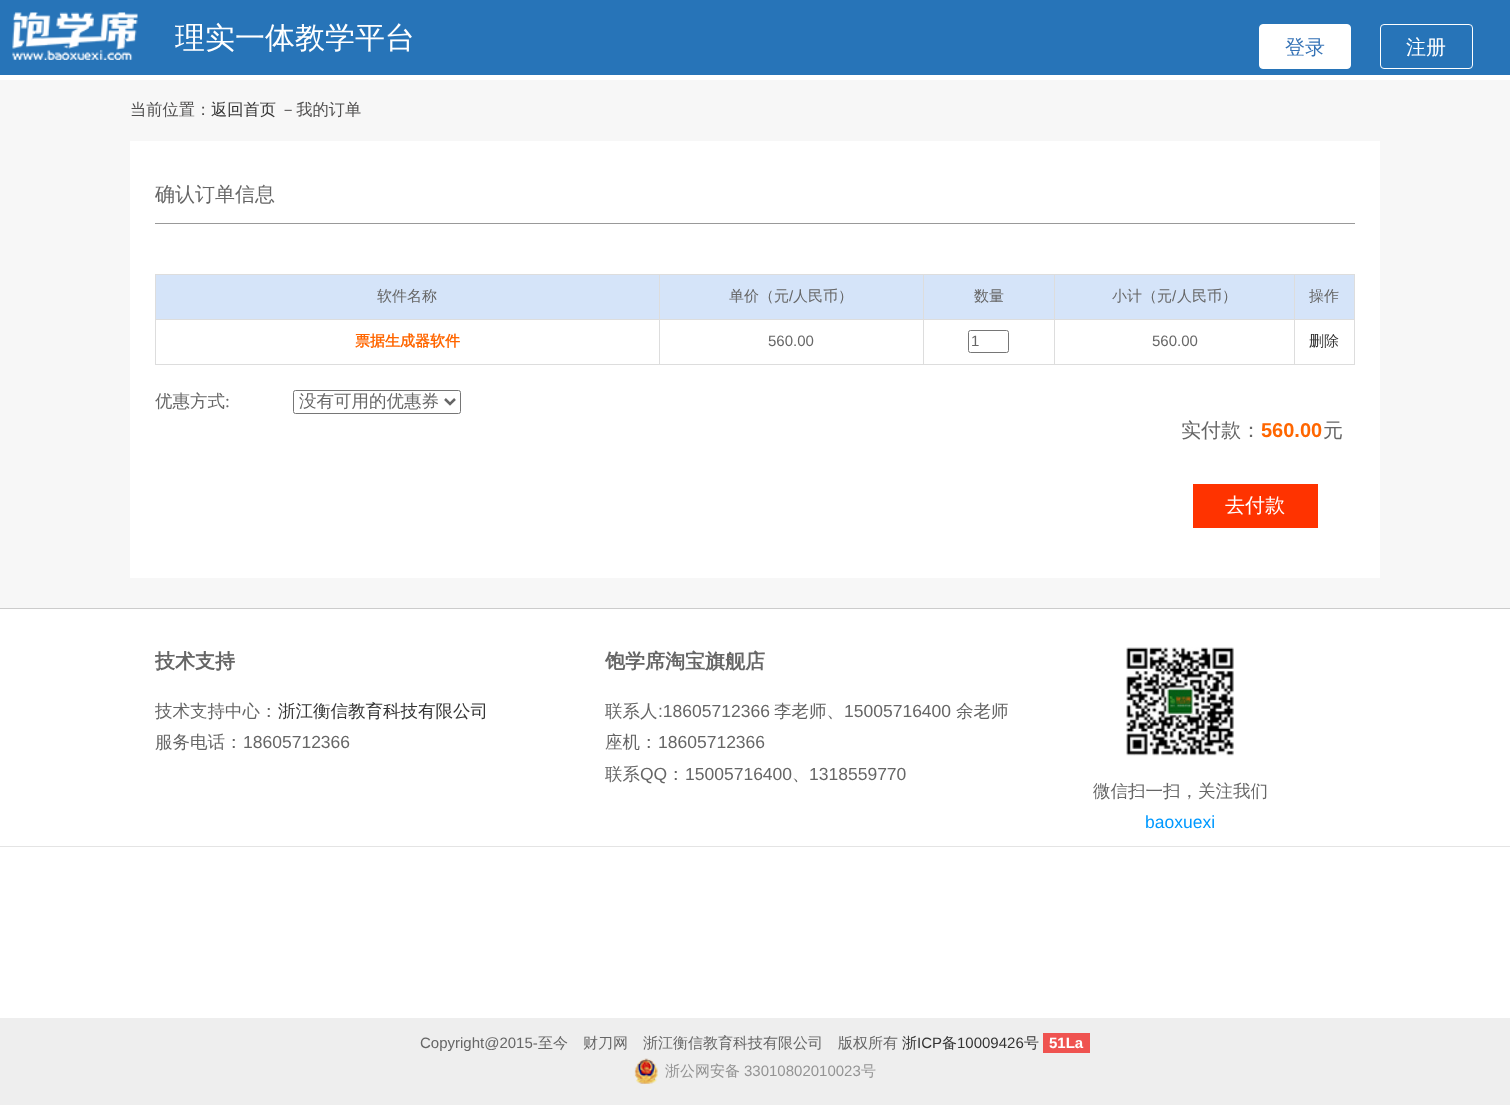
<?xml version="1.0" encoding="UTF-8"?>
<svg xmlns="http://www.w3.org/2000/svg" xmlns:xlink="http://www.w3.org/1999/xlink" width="1510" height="1105">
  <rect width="100%" height="100%" fill="#ffffff" />
  <rect width="1510" height="75" fill="#2774b8" />
  <image x="12" y="12" width="126" height="48" xlink:href="image1.png" />
  <rect x="1259.5" y="24.5" width="91" height="44" rx="3.5" fill="#ffffff" stroke="#ffffff" />
  <rect x="1380.5" y="24.5" width="92" height="44" rx="3.5" fill="none" stroke="#ffffff" />
  <rect y="80" width="1510" height="528" fill="#f7f7f7" />
  <rect x="130" y="141" width="1250" height="437" fill="#ffffff" />
  <rect x="155" y="223" width="1200" height="1" fill="#999999" />
  <rect x="156" y="275" width="503" height="44" fill="#d5e4f9" />
  <rect x="1294" y="274" width="61" height="1" fill="#dddddd" />
  <rect x="1294" y="319" width="61" height="1" fill="#dddddd" />
  <rect x="1354" y="319" width="1" height="46" fill="#dddddd" />
  <rect x="1294" y="364" width="61" height="1" fill="#dddddd" />
  <rect x="1294" y="319" width="1" height="46" fill="#dddddd" />
  <rect x="1054" y="319" width="241" height="1" fill="#dddddd" />
  <rect x="1294" y="274" width="1" height="46" fill="#dddddd" />
  <rect x="1054" y="274" width="241" height="1" fill="#dddddd" />
  <rect x="1054" y="364" width="241" height="1" fill="#dddddd" />
  <rect x="1054" y="319" width="1" height="46" fill="#dddddd" />
  <rect x="923" y="319" width="132" height="1" fill="#dddddd" />
  <rect x="1054" y="274" width="1" height="46" fill="#dddddd" />
  <rect x="923" y="274" width="132" height="1" fill="#dddddd" />
  <rect x="923" y="364" width="132" height="1" fill="#dddddd" />
  <rect x="923" y="319" width="1" height="46" fill="#dddddd" />
  <rect x="659" y="319" width="265" height="1" fill="#dddddd" />
  <rect x="923" y="274" width="1" height="46" fill="#dddddd" />
  <rect x="659" y="274" width="265" height="1" fill="#dddddd" />
  <rect x="659" y="364" width="265" height="1" fill="#dddddd" />
  <rect x="659" y="319" width="1" height="46" fill="#dddddd" />
  <rect x="155" y="319" width="505" height="1" fill="#dddddd" />
  <rect x="659" y="274" width="1" height="46" fill="#dddddd" />
  <rect x="155" y="274" width="505" height="1" fill="#dddddd" />
  <rect x="155" y="364" width="505" height="1" fill="#dddddd" />
  <rect x="155" y="319" width="1" height="46" fill="#dddddd" />
  <rect x="155" y="274" width="1" height="46" fill="#dddddd" />
  <rect x="660" y="275" width="263" height="44" fill="#d5e4f9" />
  <rect x="924" y="275" width="130" height="44" fill="#d5e4f9" />
  <rect x="1055" y="275" width="239" height="44" fill="#d5e4f9" />
  <rect x="1295" y="275" width="59" height="44" fill="#d5e4f9" />
  <rect x="1354" y="274" width="1" height="46" fill="#dddddd" />
  <rect x="968.5" y="330.5" width="40" height="22" rx="2" fill="none" stroke="#767676" />
  <rect x="293.5" y="390.5" width="167" height="23" rx="2" fill="none" stroke="#767676" />
  <path d="M 445 399 l 5 5 l 5 -5" fill="none" stroke="#666666" stroke-width="2.5" />
  <rect x="1193" y="484" width="125" height="44" fill="#ff3300" />
  <rect y="608" width="1510" height="1" fill="#cccccc" />
  <image x="1126" y="647" width="108" height="109" xlink:href="image2.png" />
  <rect y="846" width="1510" height="1" fill="#e4e4e4" />
  <rect y="1018" width="1510" height="87" fill="#eeeeee" />
  <rect x="1043" y="1033" width="47" height="20" fill="#ef5350" />
  <image x="634" y="1058" width="24" height="26" xlink:href="image3.png" />
  <text x="175" y="48" style="font-family: WenQuanYi Zen Hei; font-size: 30px; font-weight: 500; fill: #ffffff">理实一体教学平台</text>
  <text x="1285" y="54" style="font-family: WenQuanYi Zen Hei; font-size: 20px; font-weight: 500; fill: #3673b6">登录</text>
  <text x="1406" y="54" style="font-family: WenQuanYi Zen Hei; font-size: 20px; font-weight: 500; fill: #ffffff">注册</text>
  <text x="130" y="115" style="font-family: WenQuanYi Zen Hei; font-size: 16.25px; font-weight: 500; fill: #4f4e4e">当前位置：</text>
  <text x="211" y="115" style="font-family: WenQuanYi Zen Hei; font-size: 16.25px; font-weight: 500; fill: #333333">返回首页</text>
  <text x="280" y="115" style="font-family: WenQuanYi Zen Hei; font-size: 16.25px; font-weight: 500; fill: #4f4e4e">－我的订单</text>
  <text x="155" y="201" style="font-family: WenQuanYi Zen Hei; font-size: 20px; font-weight: 500; fill: #666666">确认订单信息</text>
  <text x="377" y="301" style="font-family: WenQuanYi Zen Hei; font-size: 15px; font-weight: 500; fill: #666666">软件名称</text>
  <text x="729" y="301" style="font-family: WenQuanYi Zen Hei; font-size: 15px; font-weight: 500; fill: #666666">单价（元</text>
  <text x="789" y="301" style="font-family: Liberation Sans; font-size: 15px; fill: #666666">/</text>
  <text x="793" y="301" style="font-family: WenQuanYi Zen Hei; font-size: 15px; font-weight: 500; fill: #666666">人民币）</text>
  <text x="974" y="301" style="font-family: WenQuanYi Zen Hei; font-size: 15px; font-weight: 500; fill: #666666">数量</text>
  <text x="1112" y="301" style="font-family: WenQuanYi Zen Hei; font-size: 15px; font-weight: 500; fill: #666666">小计（元</text>
  <text x="1172" y="301" style="font-family: Liberation Sans; font-size: 15px; fill: #666666">/</text>
  <text x="1177" y="301" style="font-family: WenQuanYi Zen Hei; font-size: 15px; font-weight: 500; fill: #666666">人民币）</text>
  <text x="1309" y="301" style="font-family: WenQuanYi Zen Hei; font-size: 15px; font-weight: 500; fill: #666666">操作</text>
  <text x="355" y="346" style="font-family: WenQuanYi Zen Hei; font-size: 15px; font-weight: bold; fill: #ff6600">票据生成器软件</text>
  <text x="768" y="346" style="font-family: Liberation Sans; font-size: 15px; fill: #666666">560.00</text>
  <text x="971" y="346" style="font-family: Liberation Sans; font-size: 15px; fill: #666666">1</text>
  <text x="1152" y="346" style="font-family: Liberation Sans; font-size: 15px; fill: #666666">560.00</text>
  <text x="1309" y="346" style="font-family: WenQuanYi Zen Hei; font-size: 15px; font-weight: 500; fill: #333333">删除</text>
  <text x="155" y="407" style="font-family: WenQuanYi Zen Hei; font-size: 17.5px; font-weight: 500; fill: #666666">优惠方式</text>
  <text x="225" y="407" style="font-family: Liberation Serif; font-size: 17.5px; fill: #666666">:</text>
  <text x="299" y="407" style="font-family: WenQuanYi Zen Hei; font-size: 17.5px; font-weight: 500; fill: #666666">没有可用的优惠券</text>
  <text x="1181" y="437" style="font-family: WenQuanYi Zen Hei; font-size: 20px; font-weight: 500; fill: #666666">实付款：</text>
  <text x="1261" y="437" style="font-family: Liberation Sans; font-size: 20px; font-weight: bold; fill: #ff6600">560.00</text>
  <text x="1323" y="437" style="font-family: WenQuanYi Zen Hei; font-size: 20px; font-weight: 500; fill: #666666">元</text>
  <text x="1225" y="512" style="font-family: WenQuanYi Zen Hei; font-size: 20px; font-weight: 500; fill: #ffffff">去付款</text>
  <text x="155" y="668" style="font-family: WenQuanYi Zen Hei; font-size: 20px; font-weight: bold; fill: #666666">技术支持</text>
  <text x="155" y="717" style="font-family: WenQuanYi Zen Hei; font-size: 17.5px; font-weight: 500; fill: #666666">技术支持中心：</text>
  <text x="278" y="717" style="font-family: WenQuanYi Zen Hei; font-size: 17.5px; font-weight: 500; fill: #333333">浙江衡信教育科技有限公司</text>
  <text x="155" y="748" style="font-family: WenQuanYi Zen Hei; font-size: 17.5px; font-weight: 500; fill: #666666">服务电话：</text>
  <text x="243" y="748" style="font-family: Liberation Sans; font-size: 17.5px; fill: #666666">18605712366</text>
  <text x="605" y="668" style="font-family: WenQuanYi Zen Hei; font-size: 20px; font-weight: bold; fill: #666666">饱学席淘宝旗舰店</text>
  <text x="605" y="717" style="font-family: WenQuanYi Zen Hei; font-size: 17.5px; font-weight: 500; fill: #666666">联系人</text>
  <text x="658" y="717" style="font-family: Liberation Sans; font-size: 17.5px; fill: #666666">:18605712366</text>
  <text x="774" y="717" style="font-family: WenQuanYi Zen Hei; font-size: 17.5px; font-weight: 500; fill: #666666">李老师、</text>
  <text x="844" y="717" style="font-family: Liberation Sans; font-size: 17.5px; fill: #666666">15005716400</text>
  <text x="956" y="717" style="font-family: WenQuanYi Zen Hei; font-size: 17.5px; font-weight: 500; fill: #666666">余老师</text>
  <text x="605" y="748" style="font-family: WenQuanYi Zen Hei; font-size: 17.5px; font-weight: 500; fill: #666666">座机：</text>
  <text x="658" y="748" style="font-family: Liberation Sans; font-size: 17.5px; fill: #666666">18605712366</text>
  <text x="605" y="780" style="font-family: WenQuanYi Zen Hei; font-size: 17.5px; font-weight: 500; fill: #666666">联系</text>
  <text x="640" y="780" style="font-family: Liberation Sans; font-size: 17.5px; fill: #666666">QQ</text>
  <text x="667" y="780" style="font-family: WenQuanYi Zen Hei; font-size: 17.5px; font-weight: 500; fill: #666666">：</text>
  <text x="685" y="780" style="font-family: Liberation Sans; font-size: 17.5px; fill: #666666">15005716400</text>
  <text x="809" y="780" style="font-family: Liberation Sans; font-size: 17.5px; fill: #666666">1318559770</text>
  <text x="792" y="780" style="font-family: WenQuanYi Zen Hei; font-size: 17.5px; font-weight: 500; fill: #666666">、</text>
  <text x="1093" y="797" style="font-family: WenQuanYi Zen Hei; font-size: 17.5px; font-weight: 500; fill: #666666">微信扫一扫，关注我们</text>
  <text x="1145" y="828" style="font-family: Liberation Sans; font-size: 17.5px; fill: #0099ff">baoxuexi</text>
  <text x="420" y="1048" style="font-family: Liberation Sans; font-size: 15px; fill: #666666">Copyright@2015-</text>
  <text x="538" y="1048" style="font-family: WenQuanYi Zen Hei; font-size: 15px; font-weight: 500; fill: #666666">至今　财刀网　浙江衡信教育科技有限公司　版权所有</text>
  <text x="902" y="1048" style="font-family: WenQuanYi Zen Hei; font-size: 15px; font-weight: 500; fill: #333333">浙</text>
  <text x="917" y="1048" style="font-family: Liberation Sans; font-size: 15px; fill: #333333">ICP</text>
  <text x="942" y="1048" style="font-family: WenQuanYi Zen Hei; font-size: 15px; font-weight: 500; fill: #333333">备</text>
  <text x="957" y="1048" style="font-family: Liberation Sans; font-size: 15px; fill: #333333">10009426</text>
  <text x="1024" y="1048" style="font-family: WenQuanYi Zen Hei; font-size: 15px; font-weight: 500; fill: #333333">号</text>
  <text x="1049" y="1048" style="font-family: Liberation Sans; font-size: 15px; font-weight: bold; fill: #ffffff">51La</text>
  <text x="665" y="1076" style="font-family: WenQuanYi Zen Hei; font-size: 15px; font-weight: 500; fill: #939393">浙公网安备</text>
  <text x="744" y="1076" style="font-family: Liberation Sans; font-size: 15px; fill: #939393">33010802010023</text>
  <text x="861" y="1076" style="font-family: WenQuanYi Zen Hei; font-size: 15px; font-weight: 500; fill: #939393">号</text>
</svg>
